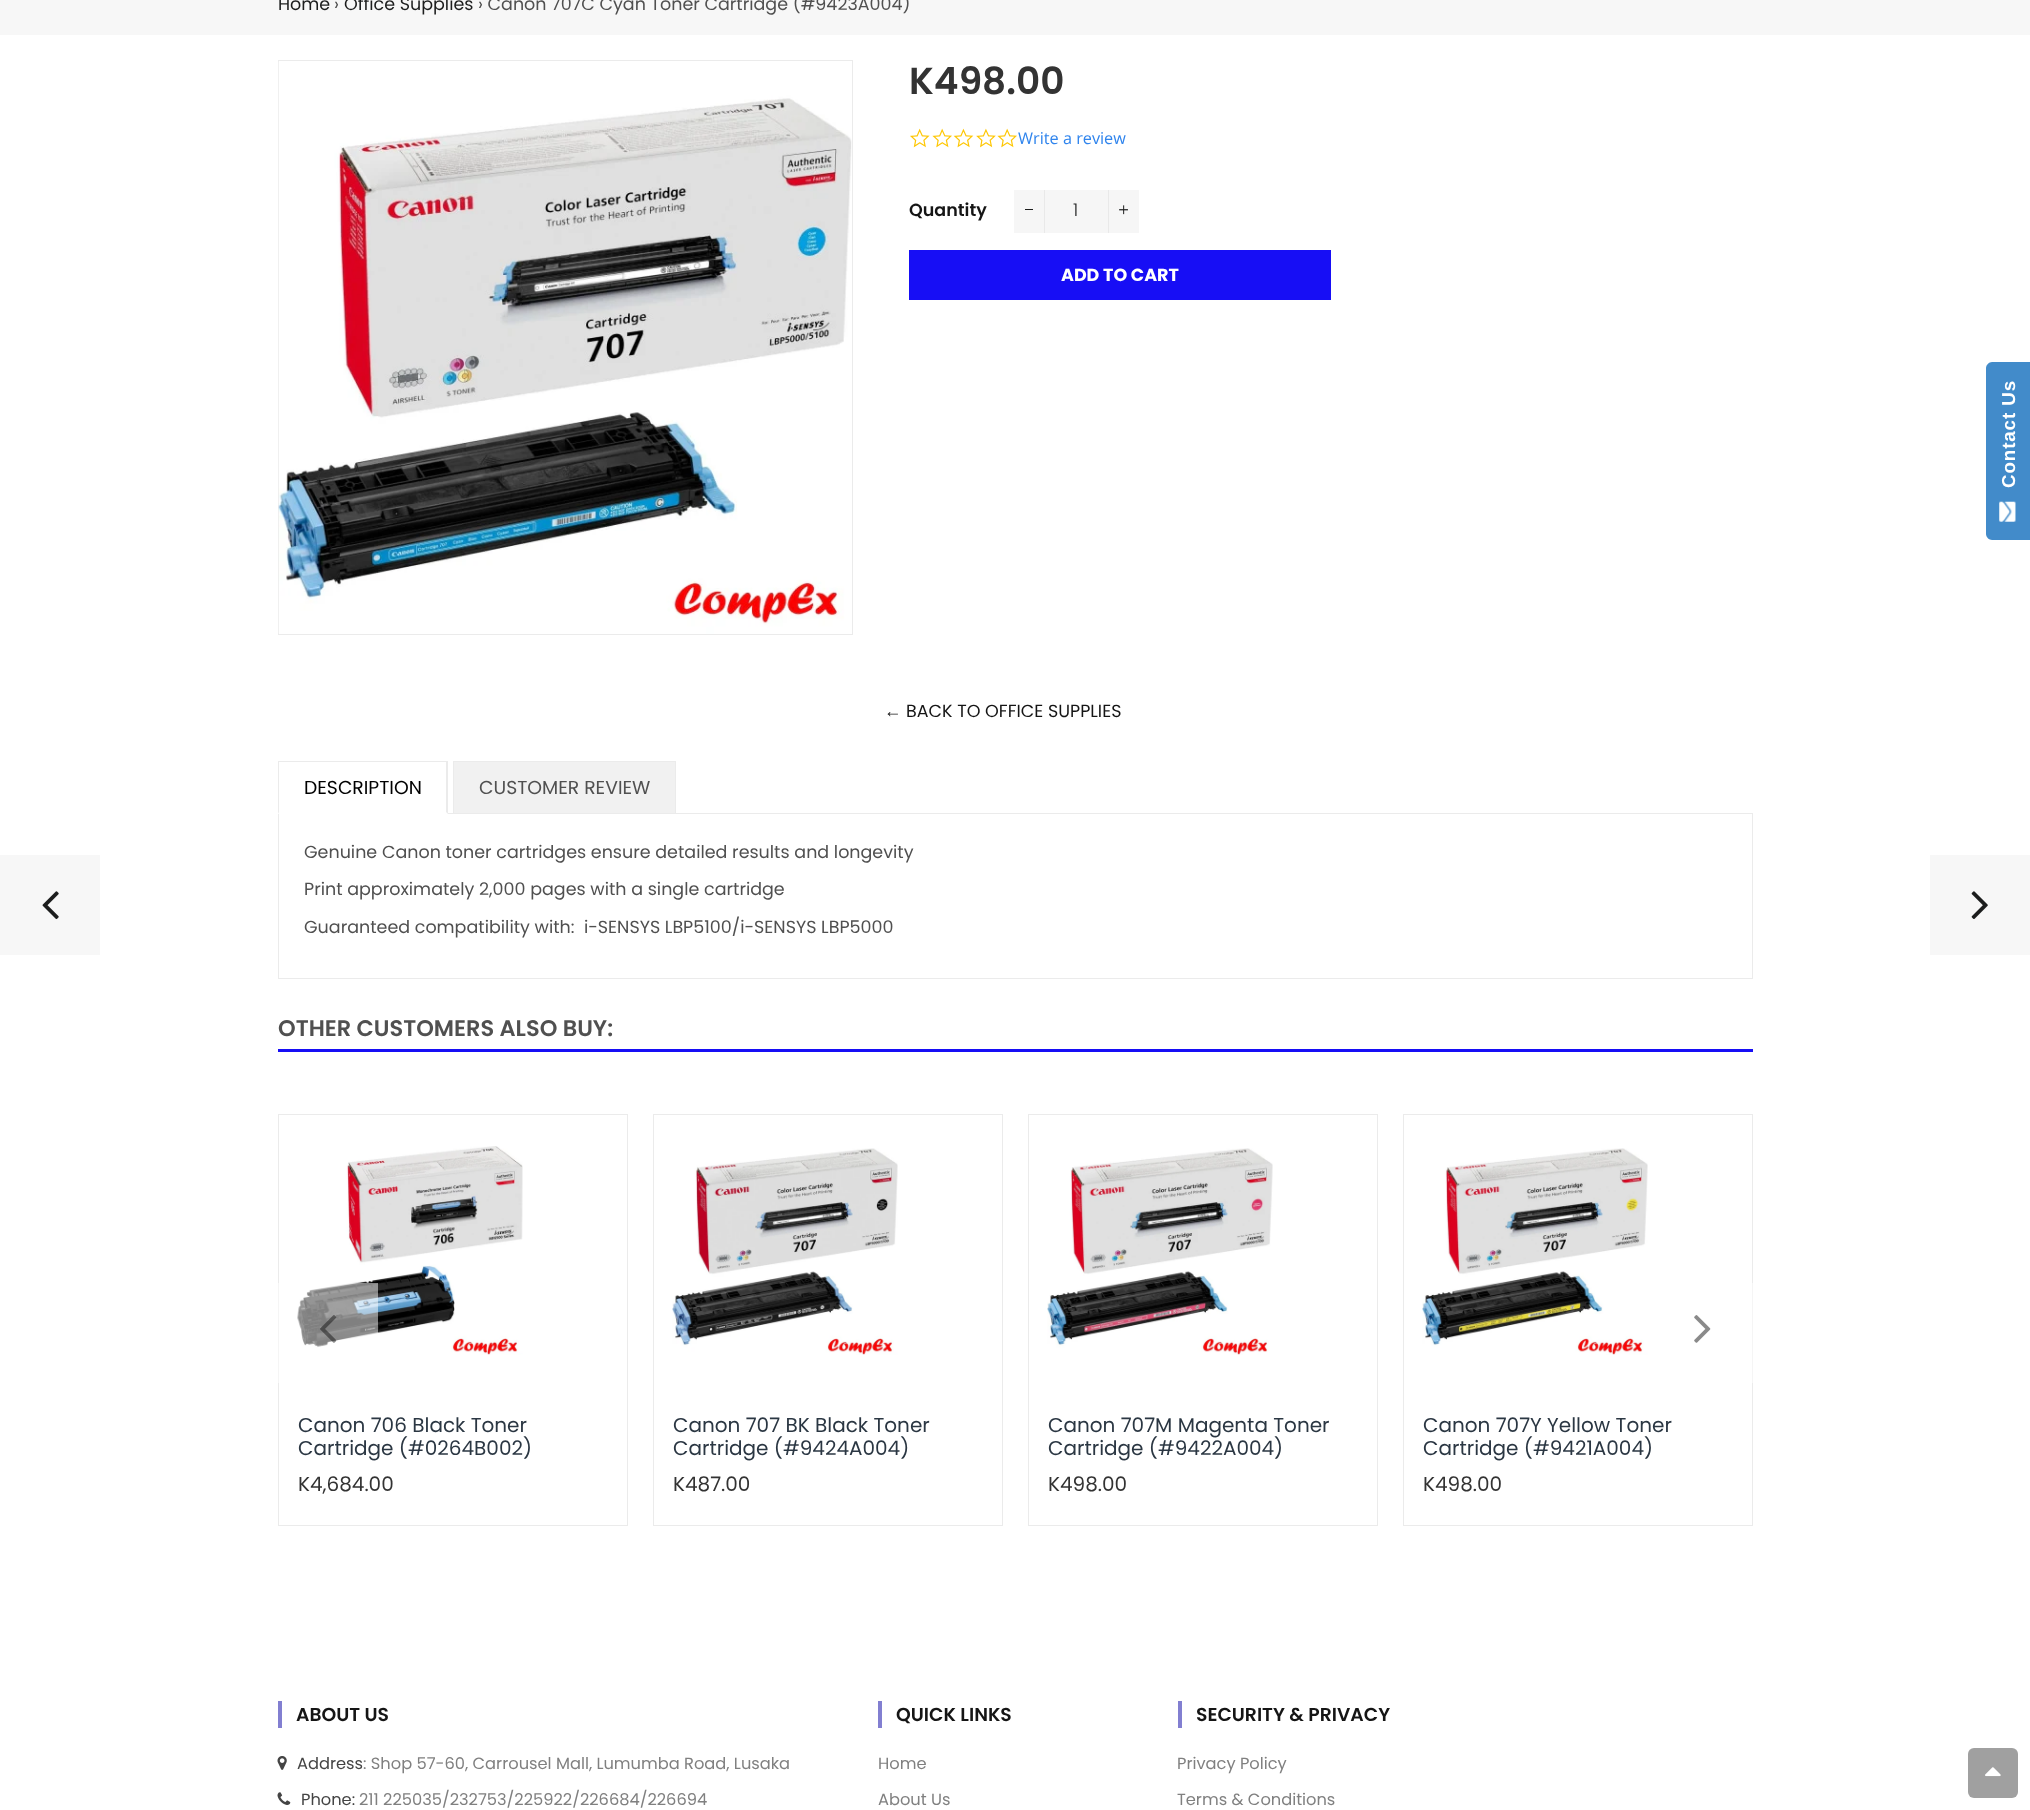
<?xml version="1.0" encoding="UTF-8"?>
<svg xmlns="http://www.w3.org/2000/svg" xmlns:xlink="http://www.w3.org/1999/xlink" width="2030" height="1810">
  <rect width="100%" height="100%" fill="#ffffff" />
  <rect width="2030" height="35" fill="#f7f7f7" />
  <rect x="278.5" y="60.5" width="574" height="574" fill="none" stroke="#ebebeb" />
  <image x="278" y="61" width="574" height="573" xlink:href="image1.png" />
  <image x="910" y="128" width="20" height="20" xlink:href="image2.png" />
  <image x="932" y="128" width="20" height="20" xlink:href="image3.png" />
  <image x="953" y="128" width="21" height="20" xlink:href="image4.png" />
  <image x="976" y="128" width="20" height="20" xlink:href="image5.png" />
  <image x="997" y="128" width="20" height="20" xlink:href="image3.png" />
  <rect x="1014" y="190" width="125" height="43" fill="#f6f6f6" />
  <rect x="1044" y="190" width="1" height="43" fill="#e9e9e9" />
  <rect x="1025" y="209" width="8" height="1" fill="#1c1d1d" />
  <rect x="1108" y="190" width="1" height="43" fill="#e9e9e9" />
  <image x="1119" y="205" width="9" height="10" xlink:href="image6.png" />
  <rect x="909" y="250" width="422" height="50" fill="#170ef5" />
  <rect x="278.5" y="813.5" width="1474" height="165" fill="none" stroke="#ebebeb" />
  <rect x="278" y="813" width="170" height="1" fill="#ffffff" />
  <rect x="278" y="761" width="170" height="1" fill="#ebebeb" />
  <path d="M 448 761 v 53 l -2 -2 v -50 z" fill="#ebebeb" />
  <path d="M 278 814 v -53 l 1 1 v 50 z" fill="#ebebeb" />
  <rect x="453.5" y="761.5" width="222" height="52" fill="#f1f1f1" stroke="#ebebeb" />
  <rect x="278" y="1049" width="1475" height="3" fill="#170ef5" />
  <rect x="278.5" y="1114.5" width="349" height="411" fill="none" stroke="#ebebeb" />
  <image x="297" y="1146" width="226" height="209" xlink:href="image9.png" />
  <rect x="278" y="1283" width="100" height="100" fill="#ffffff" fill-opacity="0.5" />
  <image x="320" y="1315" width="17" height="28" xlink:href="image7.png" />
  <rect x="1403.5" y="1114.5" width="349" height="411" fill="none" stroke="#ebebeb" />
  <rect x="1752" y="1283" width="1" height="100" fill="#ffffff" fill-opacity="0.5" />
  <image x="1694" y="1315" width="17" height="28" xlink:href="image8.png" />
  <rect x="653.5" y="1114.5" width="349" height="411" fill="none" stroke="#ebebeb" />
  <image x="672" y="1148" width="226" height="207" xlink:href="image10.png" />
  <rect x="1028.5" y="1114.5" width="349" height="411" fill="none" stroke="#ebebeb" />
  <image x="1047" y="1148" width="226" height="207" xlink:href="image11.png" />
  <image x="1422" y="1148" width="226" height="207" xlink:href="image12.png" />
  <rect y="855" width="100" height="100" fill="#f7f7f7" />
  <image x="42" y="891" width="17" height="29" xlink:href="image13.png" />
  <rect x="1930" y="855" width="100" height="100" fill="#f7f7f7" />
  <image x="1971" y="891" width="17" height="28" xlink:href="image14.png" />
  <rect x="278" y="1701" width="4" height="27" fill="#827fd1" />
  <image x="277" y="1756" width="10" height="14" xlink:href="image15.png" />
  <image x="277" y="1792" width="14" height="13" xlink:href="image16.png" />
  <rect x="878" y="1701" width="4" height="27" fill="#827fd1" />
  <rect x="1178" y="1701" width="4" height="27" fill="#827fd1" />
  <path d="M 1986 534 v -166 c 0 -3 3 -6 6 -6 h 38 v 178 h -38 c -3 0 -6 -3 -6 -6 z" fill="#428bca" />
  <image x="1999" y="501" width="17" height="21" xlink:href="image17.png" />
  <rect x="1968" y="1748" width="50" height="50" rx="6" fill="#a0a0a0" />
  <image x="1985" y="1767" width="16" height="10" xlink:href="image18.png" />
  <text x="278" y="10" style="font-family: Poppins; font-size: 17.5px; fill: #1c1d1d">Home</text>
  <text x="334" y="10" style="font-family: Poppins; font-size: 17.5px; fill: #505050">›</text>
  <text x="344" y="10" style="font-family: Poppins; font-size: 17.5px; fill: #1c1d1d">Office Supplies</text>
  <text x="478" y="10" style="font-family: Poppins; font-size: 17.5px; fill: #505050">› Canon 707C Cyan Toner Cartridge (#9423A004)</text>
  <text x="909" y="94" style="font-family: Poppins; font-size: 37.5px; font-weight: 600; fill: #333333">K498.00</text>
  <text x="1018" y="144" style="font-family: Open Sans; font-size: 16.25px; fill: #2f84ed">Write a review</text>
  <text x="909" y="216" style="font-family: Poppins; font-size: 17.5px; font-weight: 600; fill: #151515">Quantity</text>
  <text x="1073" y="216" style="font-family: Poppins; font-size: 17.5px; font-weight: 300; fill: #1c1d1d">1</text>
  <text x="1061" y="281" style="font-family: Poppins; font-size: 17.5px; font-weight: bold; fill: #ffffff">ADD TO CART</text>
  <text x="884" y="717" style="font-family: Liberation Serif; font-size: 17.5px; fill: #151515">←</text>
  <text x="906" y="717" style="font-family: Poppins; font-size: 17.5px; fill: #151515">BACK TO OFFICE SUPPLIES</text>
  <text x="304" y="794" style="font-family: Poppins; font-size: 18.75px; fill: #000000">DESCRIPTION</text>
  <text x="479" y="794" style="font-family: Poppins; font-size: 18.75px; fill: #505050">CUSTOMER REVIEW</text>
  <text x="304" y="858" style="font-family: Poppins; font-size: 17.5px; fill: #505050">Genuine Canon toner cartridges ensure detailed results and longevity</text>
  <text x="304" y="895" style="font-family: Poppins; font-size: 17.5px; fill: #505050">Print approximately 2,000 pages with a single cartridge</text>
  <text x="304" y="933" style="font-family: Poppins; font-size: 17.5px; fill: #505050" xml:space="preserve">Guaranteed compatibility with:  i-SENSYS LBP5100/i-SENSYS LBP5000</text>
  <text x="278" y="1036" style="font-family: Poppins; font-size: 22.5px; font-weight: 600; fill: #505050">OTHER CUSTOMERS ALSO BUY:</text>
  <text x="298" y="1432" style="font-family: Poppins; font-size: 20px; fill: #2b3743">Canon 706 Black Toner</text>
  <text x="298" y="1455" style="font-family: Poppins; font-size: 20px; fill: #2b3743">Cartridge (#0264B002)</text>
  <text x="298" y="1491" style="font-family: Poppins; font-size: 20px; fill: #333333">K4,684.00</text>
  <text x="673" y="1432" style="font-family: Poppins; font-size: 20px; fill: #2b3743">Canon 707 BK Black Toner</text>
  <text x="673" y="1455" style="font-family: Poppins; font-size: 20px; fill: #2b3743">Cartridge (#9424A004)</text>
  <text x="673" y="1491" style="font-family: Poppins; font-size: 20px; fill: #333333">K487.00</text>
  <text x="1048" y="1432" style="font-family: Poppins; font-size: 20px; fill: #2b3743">Canon 707M Magenta Toner</text>
  <text x="1048" y="1455" style="font-family: Poppins; font-size: 20px; fill: #2b3743">Cartridge (#9422A004)</text>
  <text x="1048" y="1491" style="font-family: Poppins; font-size: 20px; fill: #333333">K498.00</text>
  <text x="1423" y="1432" style="font-family: Poppins; font-size: 20px; fill: #2b3743">Canon 707Y Yellow Toner</text>
  <text x="1423" y="1455" style="font-family: Poppins; font-size: 20px; fill: #2b3743">Cartridge (#9421A004)</text>
  <text x="1423" y="1491" style="font-family: Poppins; font-size: 20px; fill: #333333">K498.00</text>
  <text x="296" y="1721" style="font-family: Poppins; font-size: 18.75px; font-weight: 600; fill: #151515">ABOUT US</text>
  <text x="297" y="1769" style="font-family: Poppins; font-size: 16.25px; fill: #444444">Address</text>
  <text x="363" y="1769" style="font-family: Poppins; font-size: 16.25px; fill: #808080">: Shop 57-60, Carrousel Mall, Lumumba Road, Lusaka</text>
  <text x="301" y="1805" style="font-family: Poppins; font-size: 16.25px; fill: #444444">Phone:</text>
  <text x="359" y="1805" style="font-family: Poppins; font-size: 16.25px; fill: #808080">211 225035/232753/225922/226684/226694</text>
  <text x="896" y="1721" style="font-family: Poppins; font-size: 18.75px; font-weight: 600; fill: #151515">QUICK LINKS</text>
  <text x="878" y="1769" style="font-family: Poppins; font-size: 16.25px; fill: #808080">Home</text>
  <text x="878" y="1805" style="font-family: Poppins; font-size: 16.25px; fill: #808080">About Us</text>
  <text x="1196" y="1721" style="font-family: Poppins; font-size: 18.75px; font-weight: 600; fill: #151515">SECURITY &amp; PRIVACY</text>
  <text x="1177" y="1769" style="font-family: Poppins; font-size: 16.25px; fill: #808080">Privacy Policy</text>
  <text x="1177" y="1805" style="font-family: Poppins; font-size: 16.25px; fill: #808080">Terms &amp; Conditions</text>
  <text x="2015" y="488" transform="rotate(-90 2015 488)" style="font-family: Liberation Sans; font-size: 18.75px; font-weight: bold; letter-spacing: 0.9px; fill: #ffffff">Contact Us</text>
</svg>
